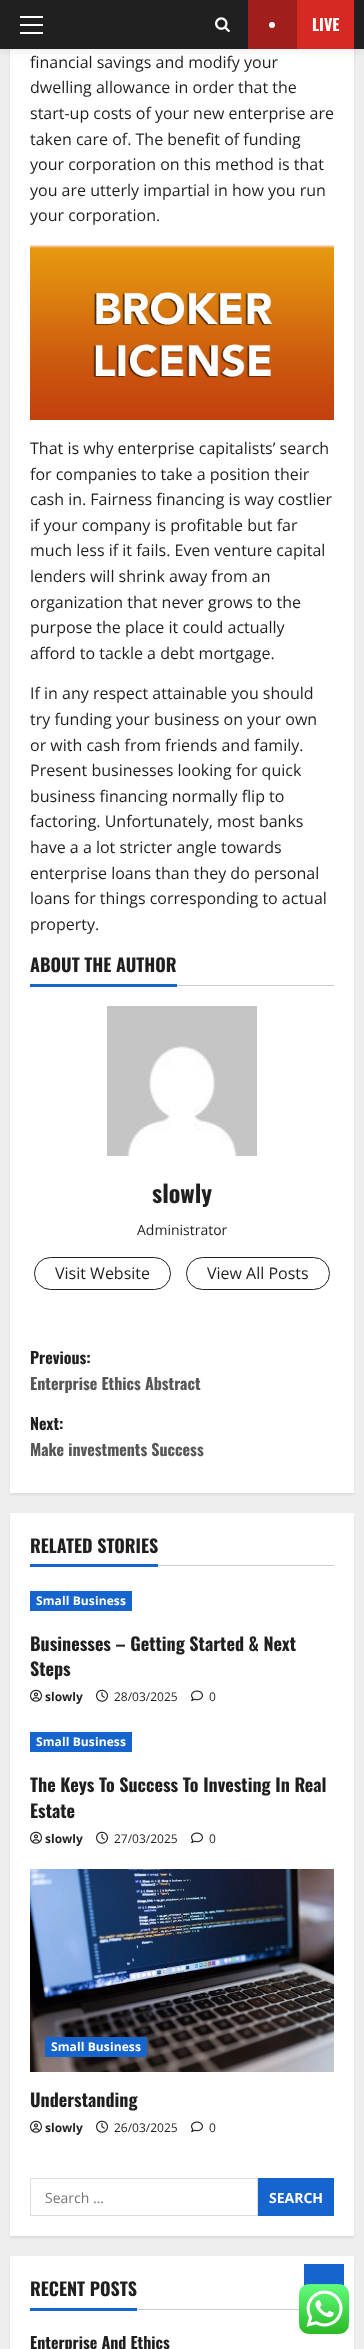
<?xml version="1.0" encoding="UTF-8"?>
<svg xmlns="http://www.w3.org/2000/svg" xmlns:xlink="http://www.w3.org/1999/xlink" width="364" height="2349">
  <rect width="100%" height="100%" fill="#eeeeee" />
  <rect x="10" y="-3" width="344" height="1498" fill="#000000" fill-opacity="0.08" filter="blur(1px)" />
  <rect x="10" y="49" width="344" height="1444" fill="#ffffff" />
  <rect y="2" width="364" height="49" fill="#000000" fill-opacity="0.08" filter="blur(4px)" />
  <rect width="364" height="49" fill="#202020" />
  <rect x="20" y="24" width="23" height="2" fill="#ffffff" />
  <rect x="20" y="16" width="23" height="2" fill="#ffffff" />
  <rect x="20" y="32" width="23" height="2" fill="#ffffff" />
  <image x="215" y="17" width="15" height="16" xlink:href="image1.png" />
  <rect x="297" width="57" height="49" fill="#d72924" />
  <rect x="248" width="49" height="49" fill="#a11f1b" />
  <circle cx="272" cy="25" r="3" fill="#ffffff" />
  <image x="30" y="245" width="304" height="175" xlink:href="image2.png" />
  <rect x="177" y="985" width="157" height="1" fill="#cccccc" />
  <rect x="30" y="984" width="147" height="3" fill="#1665cf" />
  <image x="107" y="1006" width="150" height="150" xlink:href="image3.png" />
  <rect x="34.5" y="1257.5" width="136" height="32" rx="16" fill="none" stroke="#1f1f1f" />
  <rect x="186.5" y="1257.5" width="143" height="32" rx="16" fill="none" stroke="#1f1f1f" />
  <rect x="10" y="1515" width="344" height="645" fill="#000000" fill-opacity="0.08" filter="blur(1px)" />
  <rect x="10" y="1513" width="344" height="645" fill="#ffffff" />
  <rect x="158" y="1565" width="176" height="1" fill="#cccccc" />
  <rect x="30" y="1564" width="128" height="3" fill="#1665cf" />
  <rect x="30" y="1591" width="102" height="20" fill="#1665cf" />
  <image x="30" y="1689" width="12" height="13" xlink:href="image4.png" />
  <image x="96" y="1689" width="12" height="13" xlink:href="image5.png" />
  <image x="191" y="1690" width="12" height="11" xlink:href="image6.png" />
  <rect x="30" y="1732" width="102" height="20" fill="#1665cf" />
  <image x="30" y="1831" width="12" height="13" xlink:href="image4.png" />
  <image x="96" y="1831" width="12" height="13" xlink:href="image5.png" />
  <image x="191" y="1832" width="12" height="11" xlink:href="image6.png" />
  <image x="30" y="1869" width="304" height="203" xlink:href="image7.png" />
  <rect x="45" y="2037" width="102" height="20" fill="#1665cf" />
  <image x="30" y="2120" width="12" height="13" xlink:href="image4.png" />
  <image x="96" y="2120" width="12" height="13" xlink:href="image5.png" />
  <image x="191" y="2121" width="12" height="11" xlink:href="image6.png" />
  <rect x="10" y="2160" width="344" height="78" fill="#000000" fill-opacity="0.08" filter="blur(1px)" />
  <rect x="10" y="2158" width="344" height="78" fill="#ffffff" />
  <rect x="30.5" y="2178.5" width="227" height="37" fill="none" stroke="#dcdcdc" />
  <rect x="258" y="2178" width="76" height="38" fill="#1665cf" />
  <rect x="10" y="2258" width="344" height="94" fill="#000000" fill-opacity="0.08" filter="blur(1px)" />
  <rect x="10" y="2256" width="344" height="93" fill="#ffffff" />
  <rect x="137" y="2309" width="162" height="1" fill="#cccccc" />
  <rect x="30" y="2308" width="107" height="3" fill="#1665cf" />
  <rect x="304" y="2264" width="40" height="22" fill="#1665cf" />
  <path d="M 334 2291 h -20 l 10 -10 z" fill="#1665cf" />
  <image x="299" y="2284" width="50" height="50" xlink:href="image8.png" />
  <text x="312" y="31" style="font-family: Oswald; font-size: 16px; font-weight: bold; fill: #ffffff">LIVE</text>
  <text x="30" y="68" style="font-family: Open Sans; font-size: 16px; fill: #1f1f1f">financial savings and modify your</text>
  <text x="30" y="93" style="font-family: Open Sans; font-size: 16px; fill: #1f1f1f">dwelling allowance in order that the</text>
  <text x="30" y="119" style="font-family: Open Sans; font-size: 16px; fill: #1f1f1f">start-up costs of your new enterprise are</text>
  <text x="30" y="145" style="font-family: Open Sans; font-size: 16px; fill: #1f1f1f">taken care of. The benefit of funding</text>
  <text x="30" y="170" style="font-family: Open Sans; font-size: 16px; fill: #1f1f1f">your corporation on this method is that</text>
  <text x="30" y="196" style="font-family: Open Sans; font-size: 16px; fill: #1f1f1f">you are utterly impartial in how you run</text>
  <text x="30" y="221" style="font-family: Open Sans; font-size: 16px; fill: #1f1f1f">your corporation.</text>
  <text x="30" y="454" style="font-family: Open Sans; font-size: 16px; fill: #1f1f1f">That is why enterprise capitalists’ search</text>
  <text x="30" y="480" style="font-family: Open Sans; font-size: 16px; fill: #1f1f1f">for companies to take a position their</text>
  <text x="30" y="505" style="font-family: Open Sans; font-size: 16px; fill: #1f1f1f">cash in. Fairness financing is way costlier</text>
  <text x="30" y="531" style="font-family: Open Sans; font-size: 16px; fill: #1f1f1f">if your company is profitable but far</text>
  <text x="30" y="556" style="font-family: Open Sans; font-size: 16px; fill: #1f1f1f">much less if it fails. Even venture capital</text>
  <text x="30" y="582" style="font-family: Open Sans; font-size: 16px; fill: #1f1f1f">lenders will shrink away from an</text>
  <text x="30" y="608" style="font-family: Open Sans; font-size: 16px; fill: #1f1f1f">organization that never grows to the</text>
  <text x="30" y="633" style="font-family: Open Sans; font-size: 16px; fill: #1f1f1f">purpose the place it could actually</text>
  <text x="30" y="659" style="font-family: Open Sans; font-size: 16px; fill: #1f1f1f">afford to tackle a debt mortgage.</text>
  <text x="30" y="699" style="font-family: Open Sans; font-size: 16px; fill: #1f1f1f">If in any respect attainable you should</text>
  <text x="30" y="725" style="font-family: Open Sans; font-size: 16px; fill: #1f1f1f">try funding your business on your own</text>
  <text x="30" y="751" style="font-family: Open Sans; font-size: 16px; fill: #1f1f1f">or with cash from friends and family.</text>
  <text x="30" y="776" style="font-family: Open Sans; font-size: 16px; fill: #1f1f1f">Present businesses looking for quick</text>
  <text x="30" y="802" style="font-family: Open Sans; font-size: 16px; fill: #1f1f1f">business financing normally flip to</text>
  <text x="30" y="827" style="font-family: Open Sans; font-size: 16px; fill: #1f1f1f">factoring. Unfortunately, most banks</text>
  <text x="30" y="853" style="font-family: Open Sans; font-size: 16px; fill: #1f1f1f">have a a lot stricter angle towards</text>
  <text x="30" y="879" style="font-family: Open Sans; font-size: 16px; fill: #1f1f1f">enterprise loans than they do personal</text>
  <text x="30" y="904" style="font-family: Open Sans; font-size: 16px; fill: #1f1f1f">loans for things corresponding to actual</text>
  <text x="30" y="930" style="font-family: Open Sans; font-size: 16px; fill: #1f1f1f">property.</text>
  <text x="30" y="972" style="font-family: Oswald; font-size: 18px; font-weight: bold; fill: #1f1f1f">ABOUT THE AUTHOR</text>
  <text x="152" y="1203" style="font-family: Oswald; font-size: 24px; font-weight: bold; fill: #1f1f1f">slowly</text>
  <text x="137" y="1235" style="font-family: Open Sans; font-size: 14px; fill: #1f1f1f">Administrator</text>
  <text x="55" y="1279" style="font-family: Open Sans; font-size: 16px; fill: #1f1f1f">Visit Website</text>
  <text x="207" y="1279" style="font-family: Open Sans; font-size: 16px; fill: #1f1f1f">View All Posts</text>
  <text x="30" y="1364" style="font-family: Oswald; font-size: 16px; font-weight: bold; fill: #1f1f1f">Previous:</text>
  <text x="30" y="1390" style="font-family: Oswald; font-size: 16px; font-weight: bold; fill: #575757">Enterprise Ethics Abstract</text>
  <text x="30" y="1430" style="font-family: Oswald; font-size: 16px; font-weight: bold; fill: #1f1f1f">Next:</text>
  <text x="30" y="1456" style="font-family: Oswald; font-size: 16px; font-weight: bold; fill: #575757">Make investments Success</text>
  <text x="30" y="1553" style="font-family: Oswald; font-size: 18px; font-weight: bold; fill: #1f1f1f">RELATED STORIES</text>
  <text x="36" y="1605" style="font-family: Open Sans; font-size: 12px; font-weight: bold; letter-spacing: 0.1px; fill: #ffffff">Small Business</text>
  <text x="30" y="1651" style="font-family: Oswald; font-size: 18px; font-weight: bold; fill: #1f1f1f">Businesses – Getting Started &amp; Next</text>
  <text x="30" y="1676" style="font-family: Oswald; font-size: 18px; font-weight: bold; fill: #1f1f1f">Steps</text>
  <text x="45" y="1701" style="font-family: Open Sans; font-size: 12px; font-weight: bold; fill: #1f1f1f">slowly</text>
  <text x="114" y="1701" style="font-family: Open Sans; font-size: 12px; fill: #1f1f1f">28/03/2025</text>
  <text x="209" y="1701" style="font-family: Open Sans; font-size: 12px; fill: #1f1f1f">0</text>
  <text x="36" y="1746" style="font-family: Open Sans; font-size: 12px; font-weight: bold; letter-spacing: 0.1px; fill: #ffffff">Small Business</text>
  <text x="30" y="1792" style="font-family: Oswald; font-size: 18px; font-weight: bold; fill: #1f1f1f">The Keys To Success To Investing In Real</text>
  <text x="30" y="1818" style="font-family: Oswald; font-size: 18px; font-weight: bold; fill: #1f1f1f">Estate</text>
  <text x="45" y="1843" style="font-family: Open Sans; font-size: 12px; font-weight: bold; fill: #1f1f1f">slowly</text>
  <text x="114" y="1843" style="font-family: Open Sans; font-size: 12px; fill: #1f1f1f">27/03/2025</text>
  <text x="209" y="1843" style="font-family: Open Sans; font-size: 12px; fill: #1f1f1f">0</text>
  <text x="51" y="2051" style="font-family: Open Sans; font-size: 12px; font-weight: bold; letter-spacing: 0.1px; fill: #ffffff">Small Business</text>
  <text x="30" y="2107" style="font-family: Oswald; font-size: 18px; font-weight: bold; fill: #1f1f1f">Understanding</text>
  <text x="45" y="2132" style="font-family: Open Sans; font-size: 12px; font-weight: bold; fill: #1f1f1f">slowly</text>
  <text x="114" y="2132" style="font-family: Open Sans; font-size: 12px; fill: #1f1f1f">26/03/2025</text>
  <text x="209" y="2132" style="font-family: Open Sans; font-size: 12px; fill: #1f1f1f">0</text>
  <text x="45" y="2203" style="font-family: Open Sans; font-size: 14px; fill: #757575">Search …</text>
  <text x="269" y="2203" style="font-family: Open Sans; font-size: 14px; font-weight: bold; fill: #ffffff">SEARCH</text>
  <text x="30" y="2296" style="font-family: Oswald; font-size: 18px; font-weight: bold; fill: #1f1f1f">RECENT POSTS</text>
  <text x="30" y="2349" style="font-family: Oswald; font-size: 16px; font-weight: bold; fill: #1f1f1f">Enterprise And Ethics</text>
</svg>
